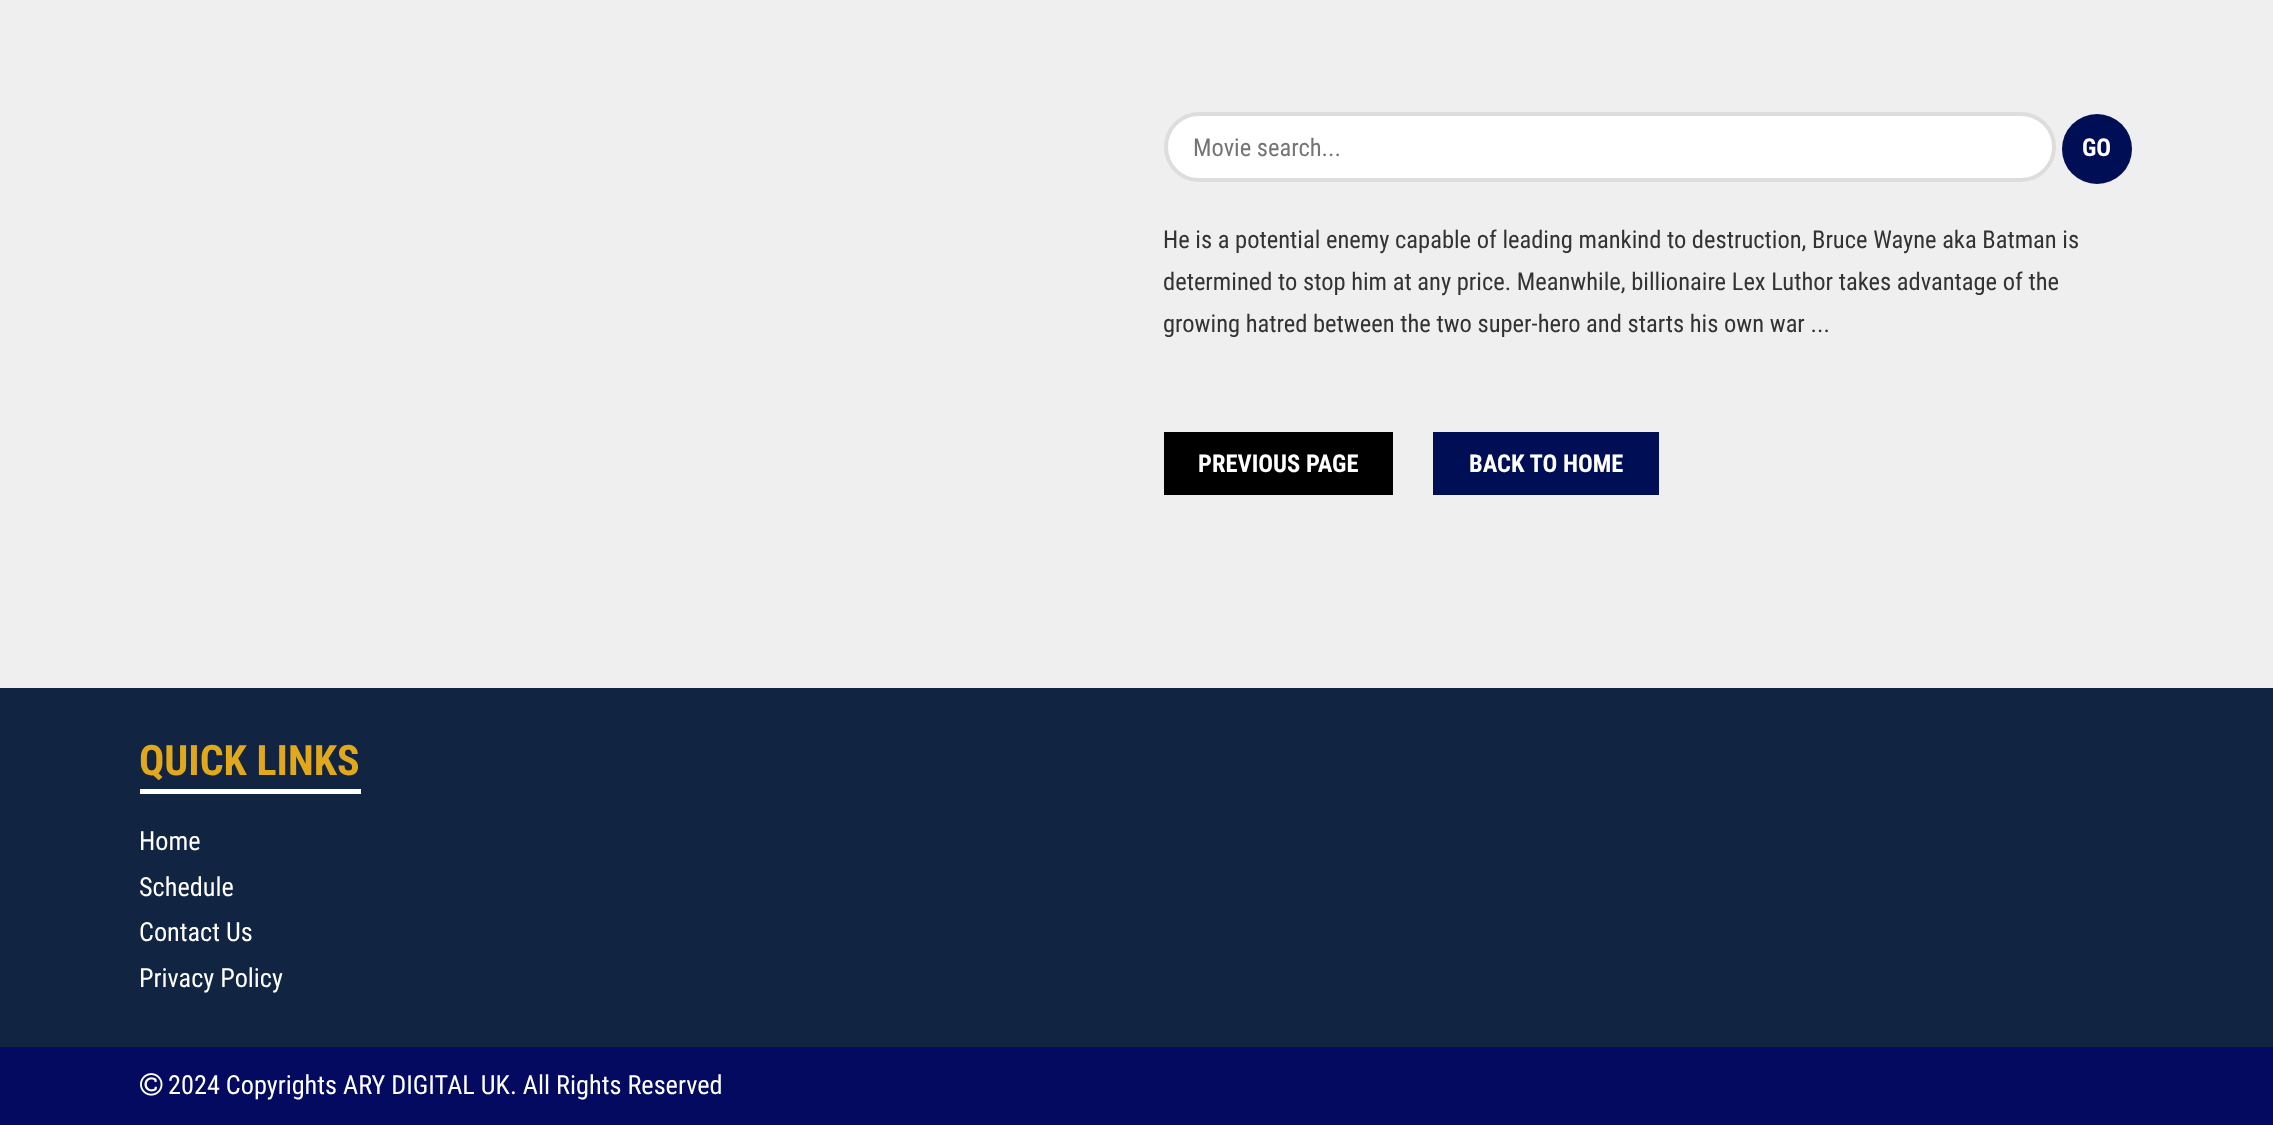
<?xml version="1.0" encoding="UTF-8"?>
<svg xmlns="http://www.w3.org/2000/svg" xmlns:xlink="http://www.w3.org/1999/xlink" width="2273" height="1125">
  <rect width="100%" height="100%" fill="#efefef" />
  <rect x="1166" y="114" width="888" height="66" rx="33" fill="#ffffff" stroke="#dddddd" stroke-width="4" />
  <circle cx="2097" cy="149" r="35" fill="#000e56" />
  <rect x="1164" y="432" width="229" height="63" fill="#000000" />
  <rect x="1433" y="432" width="226" height="63" fill="#000e56" />
  <rect y="688" width="2273" height="359" fill="#112442" />
  <rect x="140" y="789" width="221" height="5" fill="#ffffff" />
  <rect y="1047" width="2273" height="78" fill="#030a5f" />
  <image x="140" y="1073" width="23" height="23" xlink:href="image1.png" />
  <text x="1193" y="156" style="font-family: Roboto Condensed; font-size: 24.5px; fill: #757575">Movie search...</text>
  <text x="2082" y="156" style="font-family: Roboto Condensed; font-size: 24.5px; font-weight: bold; fill: #ffffff">GO</text>
  <text x="1163" y="248" style="font-family: Roboto Condensed; font-size: 24.5px; fill: #333333">He is a potential enemy capable of leading mankind to destruction, Bruce Wayne aka Batman is</text>
  <text x="1163" y="290" style="font-family: Roboto Condensed; font-size: 24.5px; fill: #333333">determined to stop him at any price. Meanwhile, billionaire Lex Luthor takes advantage of the</text>
  <text x="1163" y="332" style="font-family: Roboto Condensed; font-size: 24.5px; fill: #333333">growing hatred between the two super-hero and starts his own war ...</text>
  <text x="1198" y="472" style="font-family: Roboto Condensed; font-size: 24.5px; font-weight: bold; fill: #ffffff">PREVIOUS PAGE</text>
  <text x="1469" y="472" style="font-family: Roboto Condensed; font-size: 24.5px; font-weight: bold; fill: #ffffff">BACK TO HOME</text>
  <text x="139" y="775" style="font-family: Roboto Condensed; font-size: 42px; font-weight: bold; fill: #e1a81c">QUICK LINKS</text>
  <text x="139" y="850" style="font-family: Roboto Condensed; font-size: 26.25px; fill: #ffffff">Home</text>
  <text x="139" y="896" style="font-family: Roboto Condensed; font-size: 26.25px; fill: #ffffff">Schedule</text>
  <text x="139" y="941" style="font-family: Roboto Condensed; font-size: 26.25px; fill: #ffffff">Contact Us</text>
  <text x="139" y="987" style="font-family: Roboto Condensed; font-size: 26.25px; fill: #ffffff">Privacy Policy</text>
  <text x="168" y="1094" style="font-family: Roboto Condensed; font-size: 26.25px; fill: #ffffff">2024 Copyrights ARY DIGITAL UK. All Rights Reserved</text>
</svg>
